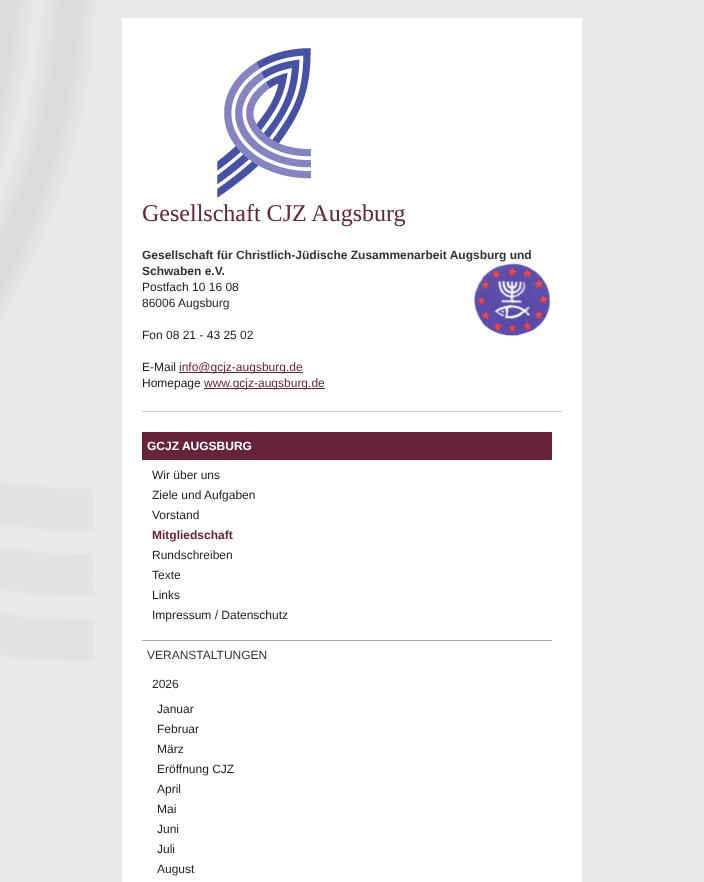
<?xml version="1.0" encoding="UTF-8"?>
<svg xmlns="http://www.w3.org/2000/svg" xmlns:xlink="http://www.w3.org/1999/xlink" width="704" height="882">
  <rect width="100%" height="100%" fill="#ebe9e8" />
  <image x="0" y="0" width="94" height="661" xlink:href="image1.png" />
  <rect x="122" y="18" width="460" height="864" fill="#ffffff" />
  <rect x="142" y="411" width="420" height="1" fill="#cccccc" />
  <image x="217" y="48" width="94" height="150" xlink:href="image2.png" />
  <image x="474" y="263" width="77" height="74" xlink:href="image3.png" />
  <rect x="179" y="372" width="124" height="1" fill="#66233c" />
  <rect x="204" y="388" width="121" height="1" fill="#66233c" />
  <rect x="142" y="432" width="410" height="28" fill="#66233c" />
  <rect x="142" y="640" width="410" height="1" fill="#aaaaaa" />
  <text x="142" y="221" style="font-family: Liberation Serif; font-size: 24px; fill: #66233c">Gesellschaft CJZ Augsburg</text>
  <text x="142" y="259" style="font-family: Liberation Sans; font-size: 12px; font-weight: bold; fill: #333333">Gesellschaft für Christlich-Jüdische Zusammenarbeit Augsburg und</text>
  <text x="142" y="275" style="font-family: Liberation Sans; font-size: 12px; font-weight: bold; fill: #333333">Schwaben e.V.</text>
  <text x="142" y="291" style="font-family: Liberation Sans; font-size: 12px; fill: #222222">Postfach 10 16 08</text>
  <text x="142" y="307" style="font-family: Liberation Sans; font-size: 12px; fill: #222222">86006 Augsburg</text>
  <text x="142" y="339" style="font-family: Liberation Sans; font-size: 12px; fill: #222222">Fon 08 21 - 43 25 02</text>
  <text x="142" y="371" style="font-family: Liberation Sans; font-size: 12px; fill: #222222">E-Mail</text>
  <text x="179" y="371" style="font-family: Liberation Sans; font-size: 12px; fill: #66233c">info@gcjz-augsburg.de</text>
  <text x="142" y="387" style="font-family: Liberation Sans; font-size: 12px; fill: #222222">Homepage</text>
  <text x="204" y="387" style="font-family: Liberation Sans; font-size: 12px; fill: #66233c">www.gcjz-augsburg.de</text>
  <text x="147" y="450" style="font-family: Liberation Sans; font-size: 12px; font-weight: bold; fill: #ffffff">GCJZ AUGSBURG</text>
  <text x="152" y="479" style="font-family: Liberation Sans; font-size: 12px; fill: #222222">Wir über uns</text>
  <text x="152" y="499" style="font-family: Liberation Sans; font-size: 12px; fill: #222222">Ziele und Aufgaben</text>
  <text x="152" y="519" style="font-family: Liberation Sans; font-size: 12px; fill: #222222">Vorstand</text>
  <text x="152" y="539" style="font-family: Liberation Sans; font-size: 12px; font-weight: bold; fill: #66233c">Mitgliedschaft</text>
  <text x="152" y="559" style="font-family: Liberation Sans; font-size: 12px; fill: #222222">Rundschreiben</text>
  <text x="152" y="579" style="font-family: Liberation Sans; font-size: 12px; fill: #222222">Texte</text>
  <text x="152" y="599" style="font-family: Liberation Sans; font-size: 12px; fill: #222222">Links</text>
  <text x="152" y="619" style="font-family: Liberation Sans; font-size: 12px; fill: #222222">Impressum / Datenschutz</text>
  <text x="147" y="659" style="font-family: Liberation Sans; font-size: 12px; fill: #333333">VERANSTALTUNGEN</text>
  <text x="152" y="688" style="font-family: Liberation Sans; font-size: 12px; fill: #222222">2026</text>
  <text x="157" y="713" style="font-family: Liberation Sans; font-size: 12px; fill: #222222">Januar</text>
  <text x="157" y="733" style="font-family: Liberation Sans; font-size: 12px; fill: #222222">Februar</text>
  <text x="157" y="753" style="font-family: Liberation Sans; font-size: 12px; fill: #222222">März</text>
  <text x="157" y="773" style="font-family: Liberation Sans; font-size: 12px; fill: #222222">Eröffnung CJZ</text>
  <text x="157" y="793" style="font-family: Liberation Sans; font-size: 12px; fill: #222222">April</text>
  <text x="157" y="813" style="font-family: Liberation Sans; font-size: 12px; fill: #222222">Mai</text>
  <text x="157" y="833" style="font-family: Liberation Sans; font-size: 12px; fill: #222222">Juni</text>
  <text x="157" y="853" style="font-family: Liberation Sans; font-size: 12px; fill: #222222">Juli</text>
  <text x="157" y="873" style="font-family: Liberation Sans; font-size: 12px; fill: #222222">August</text>
</svg>
